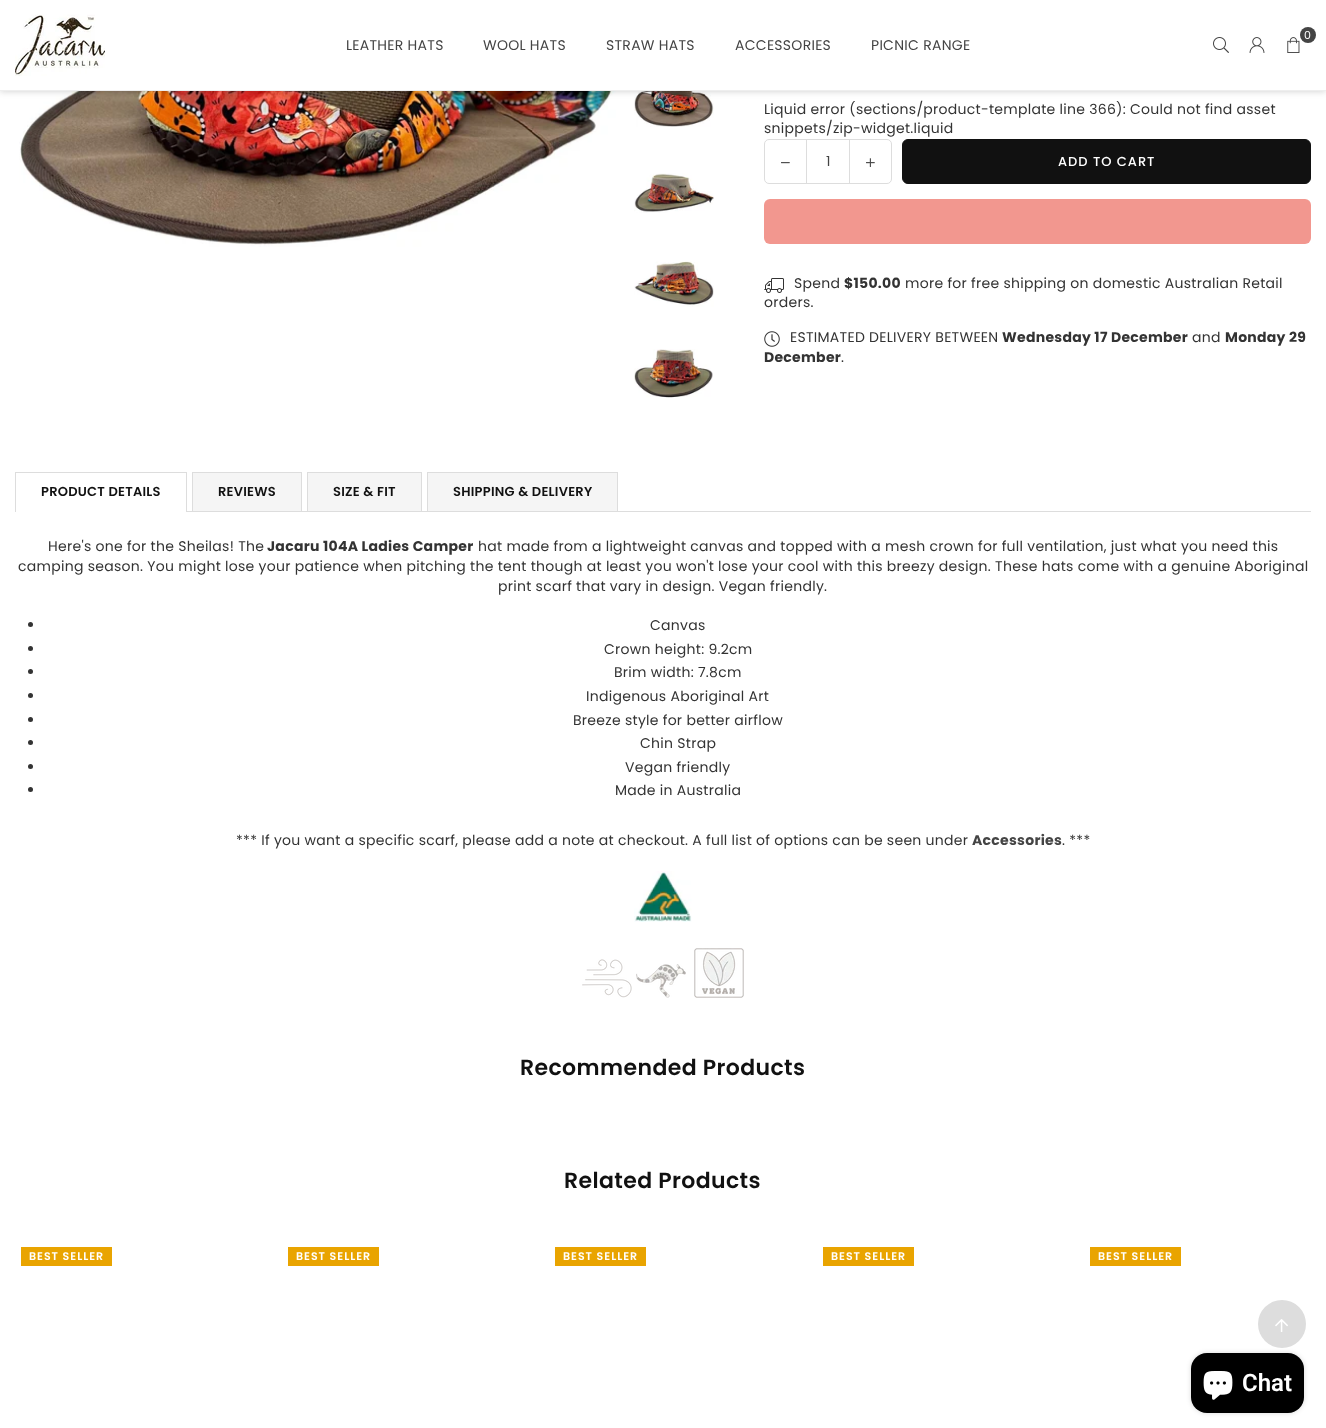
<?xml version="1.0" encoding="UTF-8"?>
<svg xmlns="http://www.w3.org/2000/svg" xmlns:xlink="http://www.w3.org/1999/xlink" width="1326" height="1428">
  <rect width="100%" height="100%" fill="#ffffff" />
  <image x="19" y="91" width="597" height="156" xlink:href="image5.png" />
  <image x="634" y="91" width="80" height="36" xlink:href="image6.png" />
  <rect width="1326" height="91" fill="#000000" fill-opacity="0.2" filter="blur(3.5px)" />
  <rect width="1326" height="90" fill="#ffffff" />
  <rect y="90" width="1326" height="1" fill="#eeeeee" />
  <image x="15" y="14" width="90" height="62" xlink:href="image1.png" />
  <circle cx="1308" cy="35" r="8" fill="#444444" />
  <image x="1287" y="37" width="13" height="16" xlink:href="image2.png" />
  <image x="1213" y="37" width="16" height="16" xlink:href="image3.png" />
  <image x="1249" y="37" width="16" height="16" xlink:href="image4.png" />
  <image x="634" y="173" width="80" height="40" xlink:href="image7.png" />
  <image x="634" y="261" width="80" height="46" xlink:href="image8.png" />
  <image x="634" y="349" width="79" height="49" xlink:href="image9.png" />
  <rect x="764.5" y="139.5" width="127" height="44" rx="4.5" fill="none" stroke="#dddddd" />
  <rect x="806" y="140" width="1" height="43" fill="#dddddd" />
  <image x="781" y="162" width="9" height="2" xlink:href="image10.png" />
  <rect x="849" y="140" width="1" height="43" fill="#dddddd" />
  <image x="866" y="158" width="9" height="9" xlink:href="image11.png" />
  <rect x="902.5" y="139.5" width="408" height="44" rx="5.5" fill="#111111" stroke="#111111" />
  <rect x="764" y="199" width="547" height="45" rx="6" fill="#f2978f" />
  <image x="764" y="278" width="20" height="15" xlink:href="image12.png" />
  <image x="764" y="331" width="16" height="16" xlink:href="image13.png" />
  <rect x="15" y="511" width="1296" height="1" fill="#dddddd" />
  <rect x="15" y="472" width="172" height="1" fill="#dddddd" />
  <rect x="186" y="472" width="1" height="39" fill="#dddddd" />
  <rect x="15" y="472" width="1" height="39" fill="#dddddd" />
  <rect x="16" y="511" width="170" height="1" fill="#ffffff" />
  <rect x="193" y="473" width="108" height="38" fill="#f5f5f5" />
  <rect x="192" y="472" width="110" height="1" fill="#dddddd" />
  <rect x="301" y="472" width="1" height="39" fill="#dddddd" />
  <rect x="192" y="472" width="1" height="39" fill="#dddddd" />
  <rect x="308" y="473" width="113" height="38" fill="#f5f5f5" />
  <rect x="307" y="472" width="115" height="1" fill="#dddddd" />
  <rect x="421" y="472" width="1" height="39" fill="#dddddd" />
  <rect x="307" y="472" width="1" height="39" fill="#dddddd" />
  <rect x="428" y="473" width="189" height="38" fill="#f5f5f5" />
  <rect x="427" y="472" width="191" height="1" fill="#dddddd" />
  <rect x="617" y="472" width="1" height="39" fill="#dddddd" />
  <rect x="427" y="472" width="1" height="39" fill="#dddddd" />
  <circle cx="30.5" cy="624.5" r="2.5" fill="#333333" />
  <circle cx="30.5" cy="648.5" r="2.5" fill="#333333" />
  <circle cx="30.5" cy="671.5" r="2.5" fill="#333333" />
  <circle cx="30.5" cy="695.5" r="2.5" fill="#333333" />
  <circle cx="30.5" cy="719.5" r="2.5" fill="#333333" />
  <circle cx="30.5" cy="742.5" r="2.5" fill="#333333" />
  <circle cx="30.5" cy="766.5" r="2.5" fill="#333333" />
  <circle cx="30.5" cy="789.5" r="2.5" fill="#333333" />
  <image x="634" y="871" width="58" height="51" xlink:href="image14.png" />
  <image x="582" y="959" width="50" height="39" xlink:href="image15.png" />
  <image x="636" y="964" width="50" height="34" xlink:href="image16.png" />
  <image x="694" y="948" width="50" height="50" xlink:href="image17.png" />
  <rect x="21" y="1247" width="91" height="19" fill="#e9a400" />
  <rect x="288" y="1247" width="91" height="19" fill="#e9a400" />
  <rect x="555" y="1247" width="91" height="19" fill="#e9a400" />
  <rect x="823" y="1247" width="91" height="19" fill="#e9a400" />
  <rect x="1090" y="1247" width="91" height="19" fill="#e9a400" />
  <circle cx="1282" cy="1324" r="24" fill="#dddddd" />
  <image x="1275" y="1319" width="13" height="13" xlink:href="image18.png" />
  <rect x="1191" y="1353" width="113" height="60" rx="16" fill="#000000" fill-opacity="0.15" filter="blur(2.5px)" />
  <rect x="1191" y="1353" width="113" height="60" rx="16" fill="#000000" />
  <image x="1203" y="1371" width="30" height="29" xlink:href="image19.png" />
  <text x="1304" y="39" style="font-family: Poppins; font-size: 11px; letter-spacing: 0.28px; fill: #ffffff">0</text>
  <text x="346" y="50" style="font-family: Poppins; font-size: 14px; letter-spacing: 0.28px; fill: #444444">LEATHER HATS</text>
  <text x="483" y="50" style="font-family: Poppins; font-size: 14px; letter-spacing: 0.28px; fill: #444444">WOOL HATS</text>
  <text x="606" y="50" style="font-family: Poppins; font-size: 14px; letter-spacing: 0.28px; fill: #444444">STRAW HATS</text>
  <text x="735" y="50" style="font-family: Poppins; font-size: 14px; letter-spacing: 0.28px; fill: #444444">ACCESSORIES</text>
  <text x="871" y="50" style="font-family: Poppins; font-size: 14px; letter-spacing: 0.28px; fill: #444444">PICNIC RANGE</text>
  <text x="764" y="114" style="font-family: Poppins; font-size: 14px; letter-spacing: 0.28px; fill: #333333">Liquid error (sections/product-template line 366): Could not find asset</text>
  <text x="764" y="133" style="font-family: Poppins; font-size: 14px; letter-spacing: 0.28px; fill: #333333">snippets/zip-widget.liquid</text>
  <text x="826" y="166" style="font-family: Poppins; font-size: 14px; fill: #444444">1</text>
  <text x="1058" y="166" style="font-family: Poppins; font-size: 13px; font-weight: 500; letter-spacing: 1px; fill: #ffffff">ADD TO CART</text>
  <text x="794" y="288" style="font-family: Poppins; font-size: 14px; letter-spacing: 0.28px; fill: #333333">Spend</text>
  <text x="844" y="288" style="font-family: Poppins; font-size: 14px; font-weight: bold; letter-spacing: 0.28px; fill: #333333">$150.00</text>
  <text x="905" y="288" style="font-family: Poppins; font-size: 14px; letter-spacing: 0.28px; fill: #333333">more for free shipping on domestic Australian Retail</text>
  <text x="764" y="307" style="font-family: Poppins; font-size: 14px; letter-spacing: 0.28px; fill: #333333">orders.</text>
  <text x="790" y="342" style="font-family: Poppins; font-size: 14px; letter-spacing: 0.28px; fill: #333333">ESTIMATED DELIVERY BETWEEN</text>
  <text x="1002" y="342" style="font-family: Poppins; font-size: 14px; font-weight: bold; letter-spacing: 0.28px; fill: #333333">Wednesday 17 December</text>
  <text x="1192" y="342" style="font-family: Poppins; font-size: 14px; letter-spacing: 0.28px; fill: #333333">and</text>
  <text x="1225" y="342" style="font-family: Poppins; font-size: 14px; font-weight: bold; letter-spacing: 0.28px; fill: #333333">Monday 29</text>
  <text x="764" y="362" style="font-family: Poppins; font-size: 14px; font-weight: bold; letter-spacing: 0.28px; fill: #333333">December</text>
  <text x="841" y="362" style="font-family: Poppins; font-size: 14px; letter-spacing: 0.28px; fill: #333333">.</text>
  <text x="41" y="496" style="font-family: Poppins; font-size: 13px; font-weight: 600; letter-spacing: 0.25px; fill: #111111">PRODUCT DETAILS</text>
  <text x="218" y="496" style="font-family: Poppins; font-size: 13px; font-weight: 600; letter-spacing: 0.25px; fill: #111111">REVIEWS</text>
  <text x="333" y="496" style="font-family: Poppins; font-size: 13px; font-weight: 600; letter-spacing: 0.25px; fill: #111111">SIZE &amp; FIT</text>
  <text x="453" y="496" style="font-family: Poppins; font-size: 13px; font-weight: 600; letter-spacing: 0.25px; fill: #111111">SHIPPING &amp; DELIVERY</text>
  <text x="48" y="551" style="font-family: Poppins; font-size: 14px; letter-spacing: 0.28px; fill: #333333">Here's one for the Sheilas! The</text>
  <text x="267" y="551" style="font-family: Poppins; font-size: 14px; font-weight: bold; letter-spacing: 0.28px; fill: #333333">Jacaru 104A Ladies Camper</text>
  <text x="478" y="551" style="font-family: Poppins; font-size: 14px; letter-spacing: 0.28px; fill: #333333">hat made from a lightweight canvas and topped with a mesh crown for full ventilation, just what you need this</text>
  <text x="18" y="571" style="font-family: Poppins; font-size: 14px; letter-spacing: 0.28px; fill: #333333">camping season. You might lose your patience when pitching the tent though at least you won't lose your cool with this breezy design. These hats come with a genuine Aboriginal</text>
  <text x="498" y="591" style="font-family: Poppins; font-size: 14px; letter-spacing: 0.28px; fill: #333333">print scarf that vary in design. Vegan friendly.</text>
  <text x="650" y="630" style="font-family: Poppins; font-size: 14px; letter-spacing: 0.28px; fill: #333333">Canvas</text>
  <text x="604" y="654" style="font-family: Poppins; font-size: 14px; letter-spacing: 0.28px; fill: #333333">Crown height: 9.2cm</text>
  <text x="614" y="677" style="font-family: Poppins; font-size: 14px; letter-spacing: 0.28px; fill: #333333">Brim width: 7.8cm</text>
  <text x="586" y="701" style="font-family: Poppins; font-size: 14px; letter-spacing: 0.28px; fill: #333333">Indigenous Aboriginal Art</text>
  <text x="573" y="725" style="font-family: Poppins; font-size: 14px; letter-spacing: 0.28px; fill: #333333">Breeze style for better airflow</text>
  <text x="640" y="748" style="font-family: Poppins; font-size: 14px; letter-spacing: 0.28px; fill: #333333">Chin Strap</text>
  <text x="625" y="772" style="font-family: Poppins; font-size: 14px; letter-spacing: 0.28px; fill: #333333">Vegan friendly</text>
  <text x="615" y="795" style="font-family: Poppins; font-size: 14px; letter-spacing: 0.28px; fill: #333333">Made in Australia</text>
  <text x="236" y="845" style="font-family: Poppins; font-size: 14px; letter-spacing: 0.28px; fill: #333333">*** If you want a specific scarf, please add a note at checkout. A full list of options can be seen under</text>
  <text x="972" y="845" style="font-family: Poppins; font-size: 14px; font-weight: bold; letter-spacing: 0.28px; fill: #444444">Accessories</text>
  <text x="1062" y="845" style="font-family: Poppins; font-size: 14px; letter-spacing: 0.28px; fill: #333333">. ***</text>
  <text x="520" y="1075" style="font-family: Poppins; font-size: 22px; font-weight: 600; letter-spacing: 0.4px; fill: #111111">Recommended Products</text>
  <text x="564" y="1188" style="font-family: Poppins; font-size: 22px; font-weight: 600; letter-spacing: 0.4px; fill: #111111">Related Products</text>
  <text x="29" y="1260" style="font-family: Poppins; font-size: 11px; font-weight: 600; letter-spacing: 1px; fill: #ffffff">BEST SELLER</text>
  <text x="296" y="1260" style="font-family: Poppins; font-size: 11px; font-weight: 600; letter-spacing: 1px; fill: #ffffff">BEST SELLER</text>
  <text x="563" y="1260" style="font-family: Poppins; font-size: 11px; font-weight: 600; letter-spacing: 1px; fill: #ffffff">BEST SELLER</text>
  <text x="831" y="1260" style="font-family: Poppins; font-size: 11px; font-weight: 600; letter-spacing: 1px; fill: #ffffff">BEST SELLER</text>
  <text x="1098" y="1260" style="font-family: Poppins; font-size: 11px; font-weight: 600; letter-spacing: 1px; fill: #ffffff">BEST SELLER</text>
  <text x="1242" y="1391" style="font-family: Roboto; font-size: 24px; font-weight: 600; fill: #ffffff">Chat</text>
</svg>
